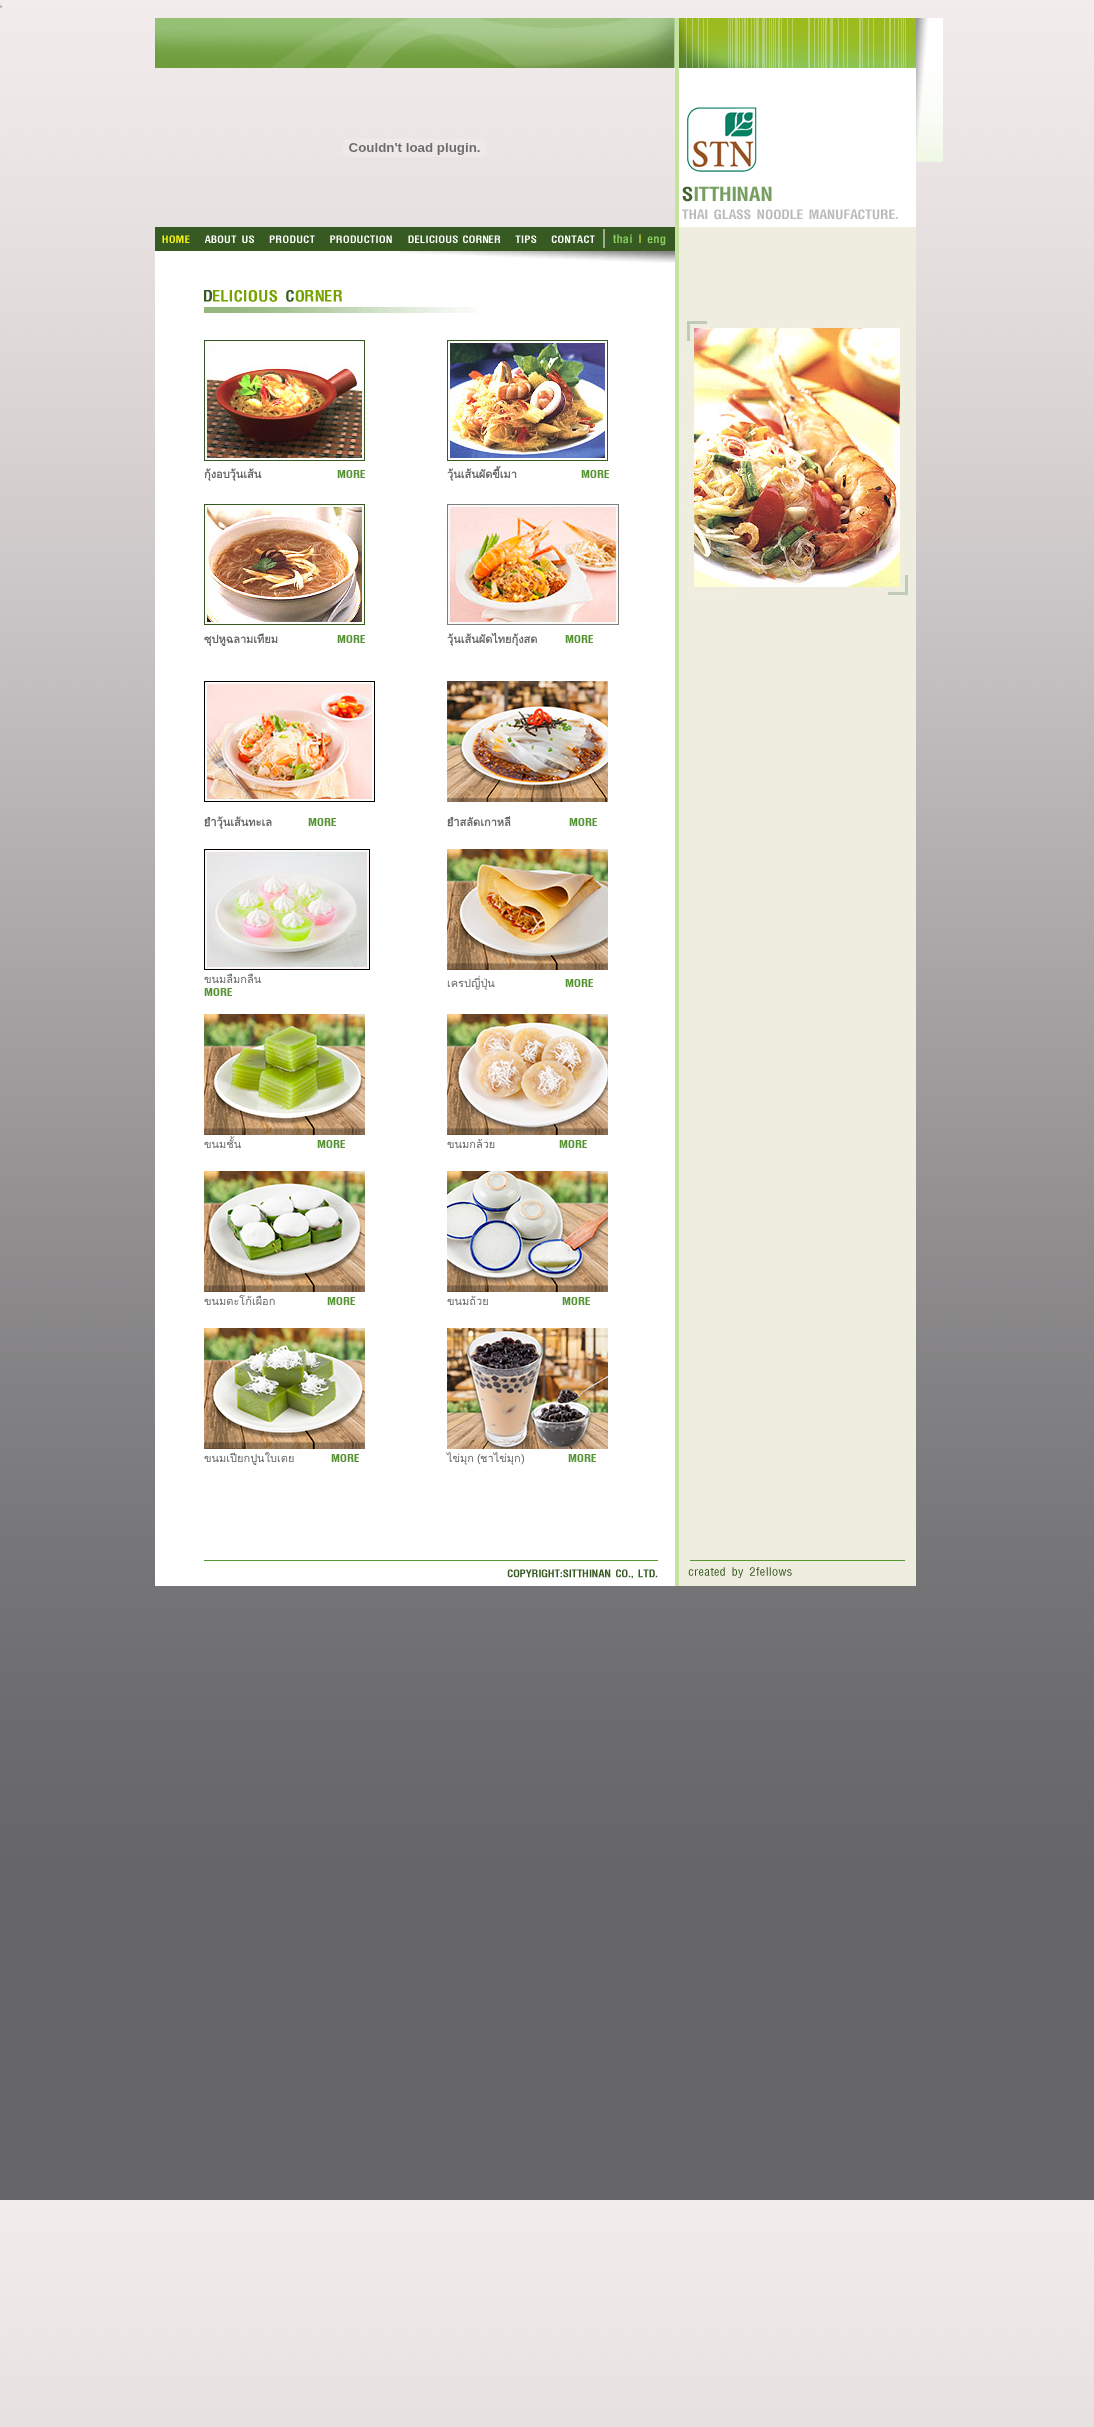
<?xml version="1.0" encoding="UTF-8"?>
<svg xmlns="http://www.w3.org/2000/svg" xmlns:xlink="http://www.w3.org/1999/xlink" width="1094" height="2427">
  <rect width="100%" height="100%" fill="#ffffff" />
  <image x="0" y="0" width="1094" height="2427" xlink:href="image1.png" />
  <image x="916" y="18" width="27" height="144" xlink:href="image2.png" />
  <image x="155" y="18" width="520" height="50" xlink:href="image3.png" />
  <rect x="675" y="18" width="4" height="1568" fill="#c6e29f" />
  <image x="679" y="18" width="237" height="50" xlink:href="image4.png" />
  <image x="343" y="139" width="144" height="18" xlink:href="image5.png" />
  <rect x="679" y="68" width="237" height="159" fill="#ffffff" />
  <image x="687" y="107" width="70" height="65" xlink:href="image6.png" />
  <image x="682" y="186" width="90" height="16" xlink:href="image7.png" />
  <image x="682" y="209" width="216" height="11" xlink:href="image8.png" />
  <rect x="155" y="227" width="520" height="24" fill="#365a21" />
  <image x="162" y="235" width="28" height="8" xlink:href="image9.png" />
  <image x="204" y="235" width="50" height="8" xlink:href="image10.png" />
  <image x="269" y="235" width="46" height="8" xlink:href="image11.png" />
  <image x="330" y="235" width="62" height="8" xlink:href="image12.png" />
  <image x="408" y="235" width="93" height="8" xlink:href="image13.png" />
  <image x="515" y="235" width="22" height="8" xlink:href="image14.png" />
  <image x="551" y="229" width="54" height="19" xlink:href="image15.png" />
  <image x="613" y="234" width="19" height="10" xlink:href="image16.png" />
  <image x="639" y="234" width="27" height="12" xlink:href="image17.png" />
  <rect x="679" y="227" width="237" height="1359" fill="#efeddf" />
  <rect x="155" y="251" width="520" height="1292" fill="#ffffff" />
  <image x="400" y="251" width="275" height="12" xlink:href="image18.png" />
  <image x="204" y="290" width="138" height="12" xlink:href="image19.png" />
  <image x="204" y="307" width="273" height="6" xlink:href="image20.png" />
  <image x="204" y="340" width="161" height="121" xlink:href="image21.png" />
  <image x="447" y="340" width="161" height="121" xlink:href="image22.png" />
  <image x="337" y="470" width="28" height="8" xlink:href="image23.png" />
  <image x="581" y="470" width="28" height="8" xlink:href="image23.png" />
  <image x="204" y="504" width="161" height="121" xlink:href="image24.png" />
  <image x="447" y="504" width="172" height="121" xlink:href="image25.png" />
  <image x="337" y="635" width="28" height="8" xlink:href="image23.png" />
  <image x="565" y="635" width="28" height="8" xlink:href="image23.png" />
  <image x="204" y="681" width="171" height="121" xlink:href="image26.png" />
  <image x="447" y="681" width="161" height="121" xlink:href="image27.png" />
  <image x="308" y="818" width="28" height="8" xlink:href="image23.png" />
  <image x="569" y="818" width="28" height="8" xlink:href="image23.png" />
  <image x="204" y="849" width="166" height="121" xlink:href="image28.png" />
  <image x="447" y="849" width="161" height="121" xlink:href="image29.png" />
  <image x="204" y="988" width="28" height="8" xlink:href="image23.png" />
  <image x="565" y="979" width="28" height="8" xlink:href="image23.png" />
  <image x="204" y="1014" width="161" height="121" xlink:href="image30.png" />
  <image x="447" y="1014" width="161" height="121" xlink:href="image31.png" />
  <image x="317" y="1140" width="28" height="8" xlink:href="image23.png" />
  <image x="559" y="1140" width="28" height="8" xlink:href="image23.png" />
  <image x="204" y="1171" width="161" height="121" xlink:href="image32.png" />
  <image x="447" y="1171" width="161" height="121" xlink:href="image33.png" />
  <image x="327" y="1297" width="28" height="8" xlink:href="image23.png" />
  <image x="562" y="1297" width="28" height="8" xlink:href="image23.png" />
  <image x="204" y="1328" width="161" height="121" xlink:href="image34.png" />
  <image x="447" y="1328" width="161" height="121" xlink:href="image35.png" />
  <image x="331" y="1454" width="28" height="8" xlink:href="image23.png" />
  <image x="568" y="1454" width="28" height="8" xlink:href="image23.png" />
  <image x="687" y="321" width="221" height="274" xlink:href="image36.png" />
  <rect x="155" y="1543" width="49" height="43" fill="#ffffff" />
  <rect x="204" y="1543" width="454" height="17" fill="#ffffff" />
  <rect x="204" y="1560" width="454" height="1" fill="#56982d" />
  <rect x="658" y="1543" width="17" height="18" fill="#ffffff" />
  <rect x="690" y="1560" width="215" height="1" fill="#56982d" />
  <rect x="204" y="1561" width="471" height="25" fill="#ffffff" />
  <image x="507" y="1569" width="151" height="10" xlink:href="image37.png" />
  <image x="688" y="1567" width="104" height="11" xlink:href="image38.png" />
  <text x="0" y="13" style="font-family: Liberation Sans; font-size: 11px; fill: #666666">'</text>
  <text x="204" y="478" style="font-family: Loma; font-size: 11px; font-weight: bold; fill: #666666">กุ้งอบวุ้นเส้น</text>
  <text x="447" y="478" style="font-family: Loma; font-size: 11px; font-weight: bold; fill: #666666">วุ้นเส้นผัดขี้เมา</text>
  <text x="204" y="643" style="font-family: Loma; font-size: 11px; font-weight: bold; fill: #666666">ซุปหูฉลามเทียม</text>
  <text x="447" y="643" style="font-family: Loma; font-size: 11px; font-weight: bold; fill: #666666">วุ้นเส้นผัดไทยกุ้งสด</text>
  <text x="204" y="826" style="font-family: Loma; font-size: 11px; font-weight: bold; fill: #666666">ยำวุ้นเส้นทะเล</text>
  <text x="447" y="826" style="font-family: Loma; font-size: 11px; font-weight: bold; fill: #666666">ยำสลัดเกาหลี</text>
  <text x="204" y="983" style="font-family: Loma; font-size: 11px; fill: #666666">ขนมลืมกลืน</text>
  <text x="447" y="987" style="font-family: Loma; font-size: 11px; fill: #666666">เครปญี่ปุ่น</text>
  <text x="204" y="1148" style="font-family: Loma; font-size: 11px; fill: #666666">ขนมชั้น</text>
  <text x="447" y="1148" style="font-family: Loma; font-size: 11px; fill: #666666">ขนมกล้วย</text>
  <text x="204" y="1305" style="font-family: Loma; font-size: 11px; fill: #666666">ขนมตะโก้เผือก</text>
  <text x="447" y="1305" style="font-family: Loma; font-size: 11px; fill: #666666">ขนมถ้วย</text>
  <text x="204" y="1462" style="font-family: Loma; font-size: 11px; fill: #666666">ขนมเปียกปูนใบเตย</text>
  <text x="447" y="1462" style="font-family: Loma; font-size: 11px; fill: #666666">ไข่มุก</text>
  <text x="477" y="1462" style="font-family: Liberation Sans; font-size: 11px; fill: #666666">(</text>
  <text x="480" y="1462" style="font-family: Loma; font-size: 11px; fill: #666666">ชาไข่มุก</text>
  <text x="521" y="1462" style="font-family: Liberation Sans; font-size: 11px; fill: #666666">)</text>
</svg>
